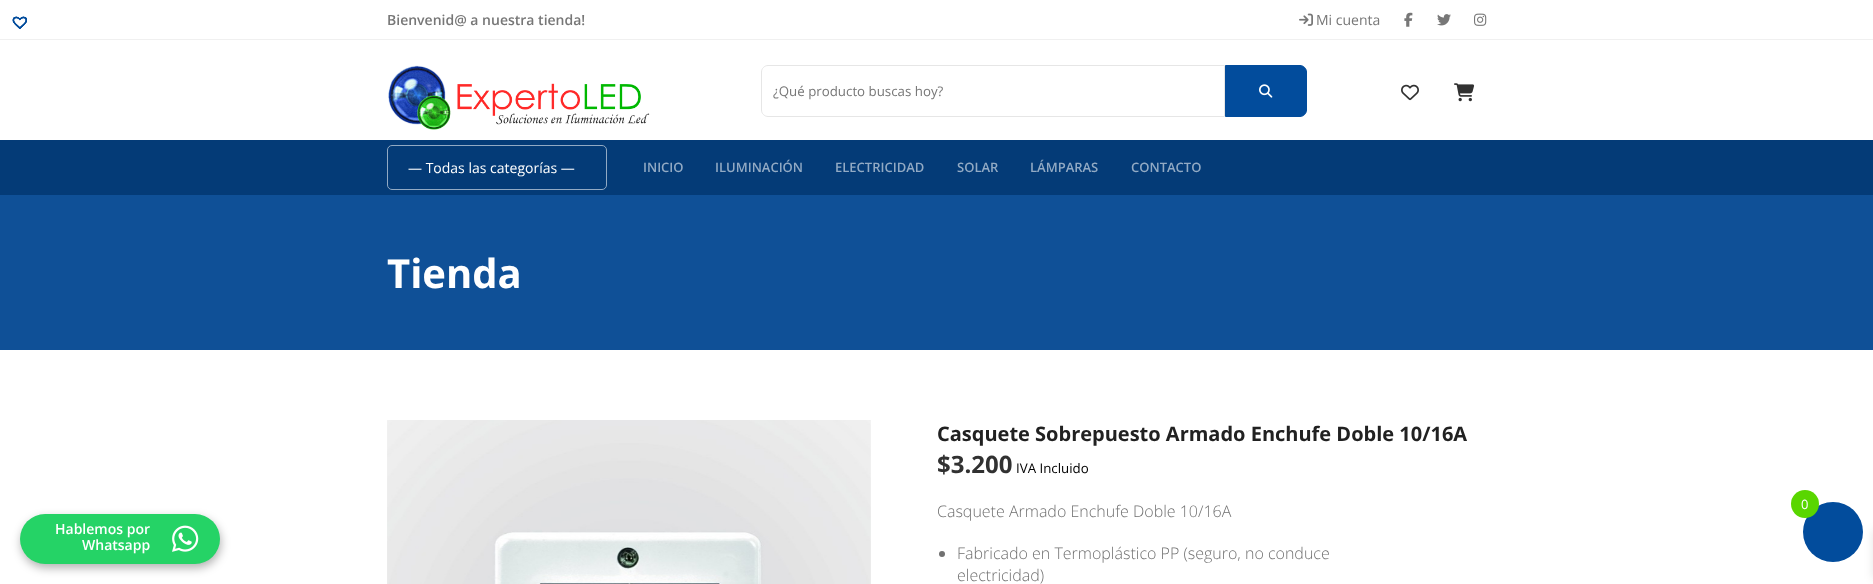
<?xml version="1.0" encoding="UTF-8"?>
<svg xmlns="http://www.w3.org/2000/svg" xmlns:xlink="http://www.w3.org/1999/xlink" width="1873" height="584">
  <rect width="100%" height="100%" fill="#ffffff" />
  <rect y="39" width="1873" height="1" fill="#f0f0f0" />
  <image x="1299" y="13" width="14" height="13" xlink:href="image1.png" />
  <image x="1404" y="12" width="9" height="15" xlink:href="image2.png" />
  <image x="1437" y="14" width="14" height="12" xlink:href="image3.png" />
  <image x="1474" y="13" width="13" height="13" xlink:href="image4.png" />
  <image x="388" y="65" width="262" height="65" xlink:href="image5.png" />
  <path d="M 768 65.5 h 456.5 v 51 h -456.5 c -3.5 0 -6.5 -3 -6.5 -6.5 v -38 c 0 -3.5 3 -6.5 6.5 -6.5 z" fill="none" stroke="#e6e6e6" />
  <path d="M 1225.5 65.5 h 74.5 c 3.5 0 6.5 3 6.5 6.5 v 38 c 0 3.5 -3 6.5 -6.5 6.5 h -74.5 z" fill="#024c9c" stroke="#024c9c" />
  <image x="1259" y="84" width="14" height="14" xlink:href="image6.png" />
  <image x="1401" y="84" width="18" height="17" xlink:href="image7.png" />
  <image x="1454" y="83" width="21" height="19" xlink:href="image8.png" />
  <rect y="140" width="1873" height="55" fill="#043b77" />
  <rect x="387.5" y="145.5" width="219" height="44" rx="4.5" fill="none" stroke="#92aac4" />
  <rect y="195" width="1873" height="155" fill="#0f5097" />
  <image x="12" y="16" width="15" height="13" xlink:href="image9.png" />
  <image x="12" y="16" width="15" height="13" xlink:href="image10.png" />
  <image x="12" y="16" width="15" height="13" xlink:href="image11.png" />
  <image x="12" y="16" width="15" height="13" xlink:href="image12.png" />
  <image x="387" y="420" width="484" height="164" xlink:href="image13.png" />
  <circle cx="942" cy="554" r="3" fill="#717171" />
  <rect x="1873" y="530" width="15" height="49" fill="#000000" fill-opacity="0.1" filter="blur(5px)" />
  <circle cx="1833" cy="532" r="30" fill="#024c9c" />
  <circle cx="1805" cy="504" r="14" fill="#59d600" />
  <rect x="21" y="518" width="200" height="50" rx="25" fill="#000000" fill-opacity="0.3" filter="blur(5px)" />
  <rect x="20" y="514" width="200" height="50" rx="25" fill="#25d366" />
  <image x="172" y="525" width="27" height="27" xlink:href="image14.png" />
  <text x="387" y="25" style="font-family: Open Sans; font-size: 14px; font-weight: 600; fill: #777777">Bienvenid@ a nuestra tienda!</text>
  <text x="1316" y="25" style="font-family: Open Sans; font-size: 14px; fill: #777777">Mi cuenta</text>
  <text x="773" y="96" style="font-family: Open Sans; font-size: 13.3px; fill: #777777">¿Qué producto buscas hoy?</text>
  <text x="408" y="173" style="font-family: Open Sans; font-size: 14px; fill: #ffffff">— Todas las categorías —</text>
  <text x="643" y="172" style="font-family: Open Sans; font-size: 13px; font-weight: 600; fill: #92aac4">INICIO</text>
  <text x="715" y="172" style="font-family: Open Sans; font-size: 13px; font-weight: 600; fill: #92aac4">ILUMINACIÓN</text>
  <text x="835" y="172" style="font-family: Open Sans; font-size: 13px; font-weight: 600; fill: #92aac4">ELECTRICIDAD</text>
  <text x="957" y="172" style="font-family: Open Sans; font-size: 13px; font-weight: 600; fill: #92aac4">SOLAR</text>
  <text x="1030" y="172" style="font-family: Open Sans; font-size: 13px; font-weight: 600; fill: #92aac4">LÁMPARAS</text>
  <text x="1131" y="172" style="font-family: Open Sans; font-size: 13px; font-weight: 600; fill: #92aac4">CONTACTO</text>
  <text x="387" y="288" style="font-family: Open Sans; font-size: 40px; font-weight: bold; fill: #ffffff">Tienda</text>
  <text x="937" y="441" style="font-family: Open Sans; font-size: 20px; font-weight: bold; fill: #212121">Casquete Sobrepuesto Armado Enchufe Doble 10/16A</text>
  <text x="937" y="473" style="font-family: Open Sans; font-size: 24px; font-weight: bold; fill: #313131">$3.200</text>
  <text x="1016" y="473" style="font-family: Open Sans; font-size: 13.3px; fill: #000000">IVA Incluido</text>
  <text x="937" y="517" style="font-family: Open Sans; font-size: 16px; font-weight: 300; fill: #717171">Casquete Armado Enchufe Doble 10/16A</text>
  <text x="957" y="559" style="font-family: Open Sans; font-size: 16px; font-weight: 300; fill: #717171">Fabricado en Termoplástico PP (seguro, no conduce</text>
  <text x="957" y="581" style="font-family: Open Sans; font-size: 16px; font-weight: 300; fill: #717171">electricidad)</text>
  <text x="1801" y="509" style="font-family: Open Sans; font-size: 13px; fill: #ffffff">0</text>
  <text x="55" y="534" style="font-family: Open Sans; font-size: 14px; font-weight: 600; fill: #ffffff">Hablemos por</text>
  <text x="82" y="550" style="font-family: Open Sans; font-size: 14px; font-weight: 600; fill: #ffffff">Whatsapp</text>
</svg>
